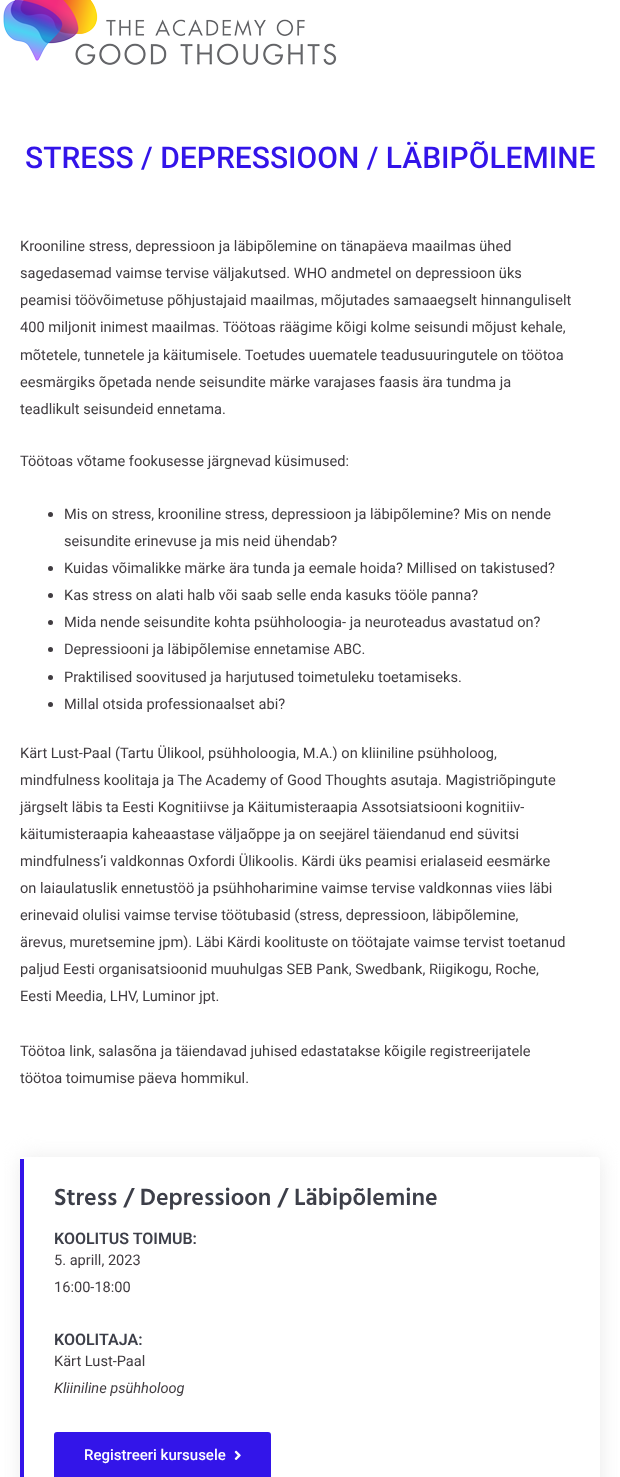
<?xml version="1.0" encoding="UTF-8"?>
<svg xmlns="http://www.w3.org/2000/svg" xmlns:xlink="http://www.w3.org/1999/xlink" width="620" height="1477">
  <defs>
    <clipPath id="clip1"><path d="M 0 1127 h 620 v 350 h -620 z m 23 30 h 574 c 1.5 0 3 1.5 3 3 v 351 c 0 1.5 -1.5 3 -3 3 h -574 c -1.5 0 -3 -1.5 -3 -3 v -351 c 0 -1.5 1.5 -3 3 -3 z" clip-rule="evenodd" /></clipPath>
  </defs>
  <rect width="100%" height="100%" fill="#ffffff" />
  <image x="3" y="0" width="334" height="65" xlink:href="image1.png" />
  <circle cx="50.5" cy="514.5" r="2.5" fill="#403c40" />
  <circle cx="50.5" cy="568.5" r="2.5" fill="#403c40" />
  <circle cx="50.5" cy="595.5" r="2.5" fill="#403c40" />
  <circle cx="50.5" cy="622.5" r="2.5" fill="#403c40" />
  <circle cx="50.5" cy="649.5" r="2.5" fill="#403c40" />
  <circle cx="50.5" cy="677.5" r="2.5" fill="#403c40" />
  <circle cx="50.5" cy="704.5" r="2.5" fill="#403c40" />
  <g clip-path="url(#clip1)">
    <rect x="21" y="1158" width="580" height="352" rx="3" fill="#eaeaea" filter="blur(10px)" />
  </g>
  <rect x="20" y="1159" width="4" height="318" fill="#3314e9" />
  <rect x="54" y="1432" width="217" height="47" rx="3" fill="#3315e9" />
  <image x="234" y="1450" width="7" height="10" xlink:href="image2.png" />
  <text x="25" y="168" style="font-family: Roboto; font-size: 30px; font-weight: 500; fill: #3314e9">STRESS / DEPRESSIOON / LÄBIPÕLEMINE</text>
  <text x="20" y="251" style="font-family: Roboto; font-size: 14.6px; fill: #403c40">Krooniline stress, depressioon ja läbipõlemine on tänapäeva maailmas ühed</text>
  <text x="20" y="278" style="font-family: Roboto; font-size: 14.6px; fill: #403c40">sagedasemad vaimse tervise väljakutsed. WHO andmetel on depressioon üks</text>
  <text x="20" y="305" style="font-family: Roboto; font-size: 14.6px; fill: #403c40">peamisi töövõimetuse põhjustajaid maailmas, mõjutades samaaegselt hinnanguliselt</text>
  <text x="20" y="332" style="font-family: Roboto; font-size: 14.6px; fill: #403c40">400 miljonit inimest maailmas. Töötoas räägime kõigi kolme seisundi mõjust kehale,</text>
  <text x="20" y="360" style="font-family: Roboto; font-size: 14.6px; fill: #403c40">mõtetele, tunnetele ja käitumisele. Toetudes uuematele teadusuuringutele on töötoa</text>
  <text x="20" y="387" style="font-family: Roboto; font-size: 14.6px; fill: #403c40">eesmärgiks õpetada nende seisundite märke varajases faasis ära tundma ja</text>
  <text x="20" y="414" style="font-family: Roboto; font-size: 14.6px; fill: #403c40">teadlikult seisundeid ennetama.</text>
  <text x="20" y="466" style="font-family: Roboto; font-size: 14.6px; fill: #403c40">Töötoas võtame fookusesse järgnevad küsimused:</text>
  <text x="64" y="519" style="font-family: Roboto; font-size: 14.6px; fill: #403c40">Mis on stress, krooniline stress, depressioon ja läbipõlemine? Mis on nende</text>
  <text x="64" y="546" style="font-family: Roboto; font-size: 14.6px; fill: #403c40">seisundite erinevuse ja mis neid ühendab?</text>
  <text x="64" y="573" style="font-family: Roboto; font-size: 14.6px; fill: #403c40">Kuidas võimalikke märke ära tunda ja eemale hoida? Millised on takistused?</text>
  <text x="64" y="600" style="font-family: Roboto; font-size: 14.6px; fill: #403c40">Kas stress on alati halb või saab selle enda kasuks tööle panna?</text>
  <text x="64" y="627" style="font-family: Roboto; font-size: 14.6px; fill: #403c40">Mida nende seisundite kohta psühholoogia- ja neuroteadus avastatud on?</text>
  <text x="64" y="654" style="font-family: Roboto; font-size: 14.6px; fill: #403c40">Depressiooni ja läbipõlemise ennetamise ABC.</text>
  <text x="64" y="682" style="font-family: Roboto; font-size: 14.6px; fill: #403c40">Praktilised soovitused ja harjutused toimetuleku toetamiseks.</text>
  <text x="64" y="709" style="font-family: Roboto; font-size: 14.6px; fill: #403c40">Millal otsida professionaalset abi?</text>
  <text x="20" y="758" style="font-family: Roboto; font-size: 14.6px; fill: #403c40">Kärt Lust-Paal (Tartu Ülikool, psühholoogia, M.A.) on kliiniline psühholoog,</text>
  <text x="20" y="785" style="font-family: Roboto; font-size: 14.6px; fill: #403c40">mindfulness koolitaja ja The Academy of Good Thoughts asutaja. Magistriõpingute</text>
  <text x="20" y="812" style="font-family: Roboto; font-size: 14.6px; fill: #403c40">järgselt läbis ta Eesti Kognitiivse ja Käitumisteraapia Assotsiatsiooni kognitiiv-</text>
  <text x="20" y="839" style="font-family: Roboto; font-size: 14.6px; fill: #403c40">käitumisteraapia kaheaastase väljaõppe ja on seejärel täiendanud end süvitsi</text>
  <text x="20" y="866" style="font-family: Roboto; font-size: 14.6px; fill: #403c40">mindfulness’i valdkonnas Oxfordi Ülikoolis. Kärdi üks peamisi erialaseid eesmärke</text>
  <text x="20" y="893" style="font-family: Roboto; font-size: 14.6px; fill: #403c40">on laiaulatuslik ennetustöö ja psühhoharimine vaimse tervise valdkonnas viies läbi</text>
  <text x="20" y="920" style="font-family: Roboto; font-size: 14.6px; fill: #403c40">erinevaid olulisi vaimse tervise töötubasid (stress, depressioon, läbipõlemine,</text>
  <text x="20" y="947" style="font-family: Roboto; font-size: 14.6px; fill: #403c40">ärevus, muretsemine jpm). Läbi Kärdi koolituste on töötajate vaimse tervist toetanud</text>
  <text x="20" y="974" style="font-family: Roboto; font-size: 14.6px; fill: #403c40">paljud Eesti organisatsioonid muuhulgas SEB Pank, Swedbank, Riigikogu, Roche,</text>
  <text x="20" y="1001" style="font-family: Roboto; font-size: 14.6px; fill: #403c40">Eesti Meedia, LHV, Luminor jpt.</text>
  <text x="20" y="1056" style="font-family: Roboto; font-size: 14.6px; fill: #403c40">Töötoa link, salasõna ja täiendavad juhised edastatakse kõigile registreerijatele</text>
  <text x="20" y="1083" style="font-family: Roboto; font-size: 14.6px; fill: #403c40">töötoa toimumise päeva hommikul.</text>
  <text x="54" y="1205" style="font-family: Hind; font-size: 24px; font-weight: 600; fill: #3d3f49">Stress / Depressioon / Läbipõlemine</text>
  <text x="54" y="1244" style="font-family: Roboto; font-size: 16px; font-weight: 600; fill: #3d3f49">KOOLITUS TOIMUB:</text>
  <text x="54" y="1265" style="font-family: Roboto; font-size: 14.6px; fill: #403c40">5. aprill, 2023</text>
  <text x="54" y="1292" style="font-family: Roboto; font-size: 14.6px; fill: #403c40">16:00-18:00</text>
  <text x="54" y="1345" style="font-family: Roboto; font-size: 16px; font-weight: 600; fill: #3d3f49">KOOLITAJA:</text>
  <text x="54" y="1366" style="font-family: Roboto; font-size: 14.6px; fill: #403c40">Kärt Lust-Paal</text>
  <text x="54" y="1393" style="font-family: Roboto; font-size: 14.6px; font-style: italic; fill: #403c40">Kliiniline psühholoog</text>
  <text x="84" y="1460" style="font-family: Roboto; font-size: 15px; font-weight: 500; fill: #ffffff">Registreeri kursusele</text>
</svg>
